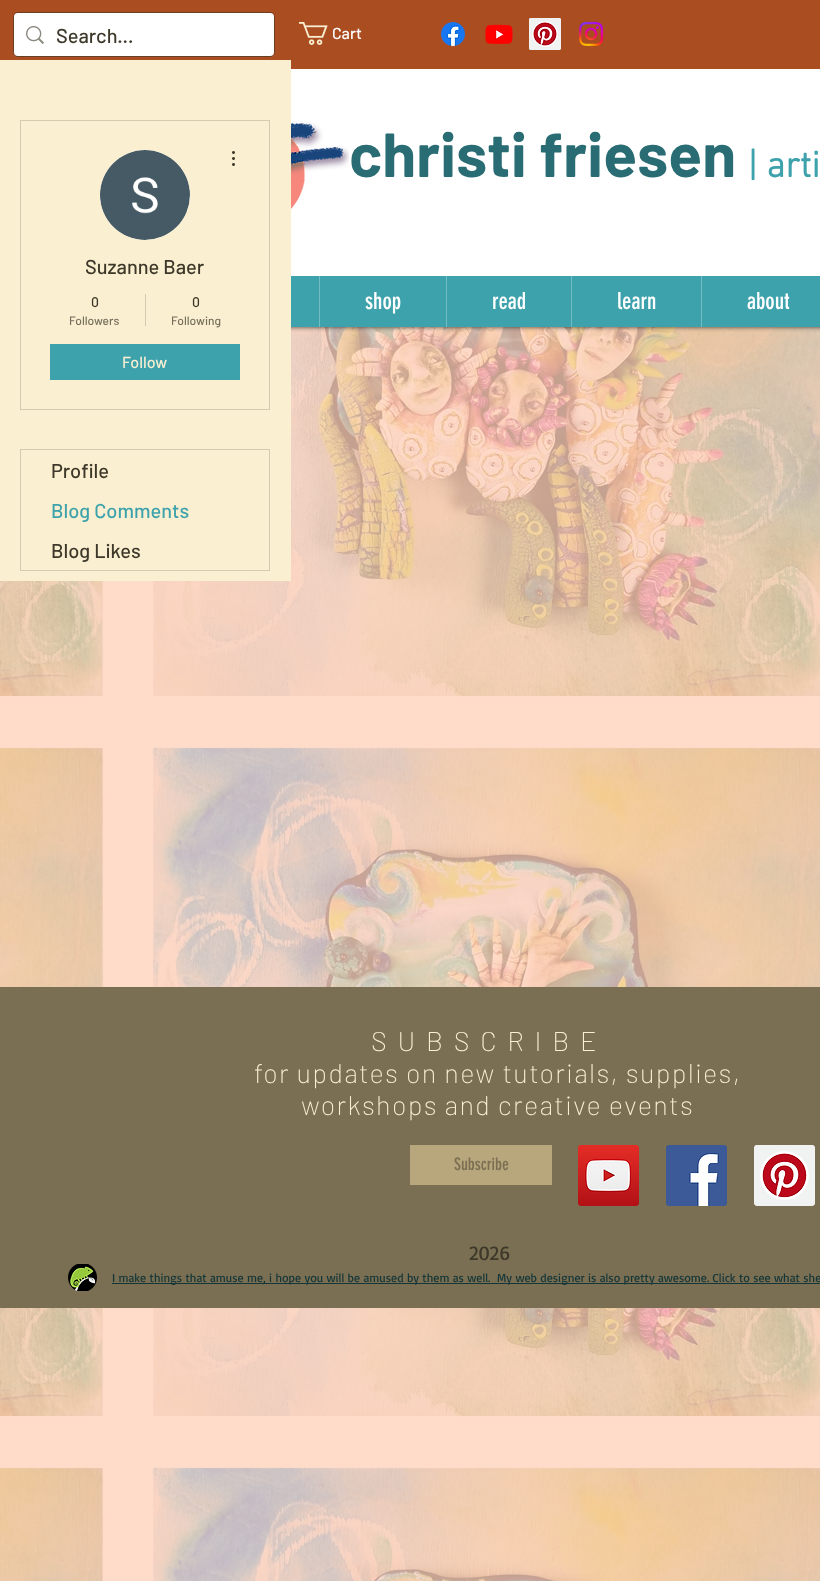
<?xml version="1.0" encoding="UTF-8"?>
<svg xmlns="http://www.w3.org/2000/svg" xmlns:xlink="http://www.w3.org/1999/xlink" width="820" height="1581">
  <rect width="100%" height="100%" fill="#ffd1ba" />
  <image x="0" y="327" width="820" height="1254" xlink:href="image14.png" />
  <rect width="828" height="327" fill="#000000" fill-opacity="0.7" filter="blur(2.5px)" />
  <rect y="59" width="820" height="217" fill="#ffffff" />
  <rect width="820" height="69" fill="#aa4d21" />
  <rect x="13.5" y="12.5" width="261" height="44" rx="4.5" fill="none" stroke="#694026" />
  <rect x="14" y="13" width="260" height="43" rx="4" fill="#ffffff" />
  <image x="26" y="26" width="18" height="18" xlink:href="image1.png" />
  <image x="299" y="22" width="29" height="23" xlink:href="image2.png" />
  <image x="440" y="21" width="26" height="26" xlink:href="image3.png" />
  <image x="485" y="24" width="28" height="20" xlink:href="image4.png" />
  <image x="529" y="18" width="32" height="32" xlink:href="image5.png" />
  <image x="579" y="21" width="25" height="26" xlink:href="image6.png" />
  <image x="291" y="121" width="58" height="88" xlink:href="image7.png" />
  <rect x="291" y="276" width="529" height="51" fill="#3da2ac" />
  <rect x="319" y="276" width="1" height="51" fill="#73bcc3" />
  <rect x="446" y="276" width="1" height="51" fill="#73bcc3" />
  <rect x="571" y="276" width="1" height="51" fill="#73bcc3" />
  <rect x="701" y="276" width="1" height="51" fill="#73bcc3" />
  <rect y="60" width="291" height="521" fill="#faefd1" />
  <rect x="20.5" y="120.5" width="249" height="289" fill="none" stroke="#d4caaf" />
  <circle cx="145" cy="195" r="45" fill="#d8d8d8" />
  <image x="100" y="150" width="90" height="90" xlink:href="image8.png" />
  <image x="232" y="151" width="3" height="15" xlink:href="image9.png" />
  <rect x="145" y="294" width="1" height="32" fill="#d4caaf" />
  <rect x="50" y="344" width="190" height="36" fill="#3da2ac" />
  <rect x="20.5" y="449.5" width="249" height="121" fill="none" stroke="#d4caaf" />
  <rect y="987" width="820" height="321" fill="#7a6f52" />
  <rect x="410" y="1145" width="142" height="40" fill="#b8a77c" />
  <image x="578" y="1145" width="61" height="61" xlink:href="image10.png" />
  <image x="666" y="1145" width="61" height="61" xlink:href="image11.png" />
  <image x="754" y="1145" width="61" height="61" xlink:href="image12.png" />
  <image x="68" y="1264" width="29" height="27" xlink:href="image13.png" />
  <rect x="112" y="1283" width="708" height="1" fill="#143639" />
  <text x="56" y="43" style="font-family: Barlow; font-size: 20px; font-weight: 500; fill: #3d3829">Search...</text>
  <text x="332" y="39" style="font-family: Barlow; font-size: 16px; font-weight: 500; fill: #ffffff">Cart</text>
  <text x="349" y="177" style="font-family: Barlow; font-size: 62px; font-weight: bold; fill: #296c73">christi friesen</text>
  <text x="748" y="177" style="font-family: 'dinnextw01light'; font-size: 37px; font-weight: bold; fill: #3da2ac">| arti</text>
  <text x="365" y="309" style="font-family: 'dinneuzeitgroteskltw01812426'; font-size: 23px; fill: #ffffff">shop</text>
  <text x="492" y="309" style="font-family: 'dinneuzeitgroteskltw01812426'; font-size: 23px; fill: #ffffff">read</text>
  <text x="617" y="309" style="font-family: 'dinneuzeitgroteskltw01812426'; font-size: 23px; fill: #ffffff">learn</text>
  <text x="747" y="309" style="font-family: 'dinneuzeitgroteskltw01812426'; font-size: 23px; fill: #ffffff">about</text>
  <text x="85" y="274" style="font-family: Barlow; font-size: 20px; font-weight: 500; fill: #3d3829">Suzanne Baer</text>
  <text x="91" y="307" style="font-family: Barlow; font-size: 14px; font-weight: 500; fill: #3d3829">0</text>
  <text x="69" y="325" style="font-family: Barlow; font-size: 12px; font-weight: 500; fill: #766f5b">Followers</text>
  <text x="192" y="307" style="font-family: Barlow; font-size: 14px; font-weight: 500; fill: #3d3829">0</text>
  <text x="171" y="325" style="font-family: Barlow; font-size: 12px; font-weight: 500; fill: #766f5b">Following</text>
  <text x="122" y="368" style="font-family: Barlow; font-size: 16px; font-weight: 500; fill: #faefd1">Follow</text>
  <text x="51" y="478" style="font-family: Barlow; font-size: 20px; font-weight: 500; fill: #3d3829">Profile</text>
  <text x="51" y="518" style="font-family: Barlow; font-size: 20px; font-weight: 500; fill: #3da2ac">Blog Comments</text>
  <text x="51" y="558" style="font-family: Barlow; font-size: 20px; font-weight: 500; fill: #3d3829">Blog Likes</text>
  <text x="371" y="1051" style="font-family: Barlow; font-size: 27px; font-weight: 200; letter-spacing: 10.75px; fill: #faefd1">SUBSCRIBE</text>
  <text x="254" y="1083" style="font-family: Barlow; font-size: 27px; font-weight: 200; letter-spacing: 1.35px; fill: #faefd1">for updates on new tutorials, supplies,</text>
  <text x="301" y="1115" style="font-family: Barlow; font-size: 27px; font-weight: 200; letter-spacing: 1.35px; fill: #faefd1">workshops and creative events</text>
  <text x="454" y="1170" style="font-family: 'dinneuzeitgroteskltw01812426'; font-size: 17px; fill: #7a6f52">Subscribe</text>
  <text x="469" y="1260" style="font-family: Basic; font-size: 20px; fill: #3d3829">2026</text>
  <text x="112" y="1282" style="font-family: Basic; font-size: 12px; fill: #143639" xml:space="preserve">I make things that amuse me, i hope you will be amused by them as well.  My web designer is also pretty awesome. Click to see what she</text>
</svg>
